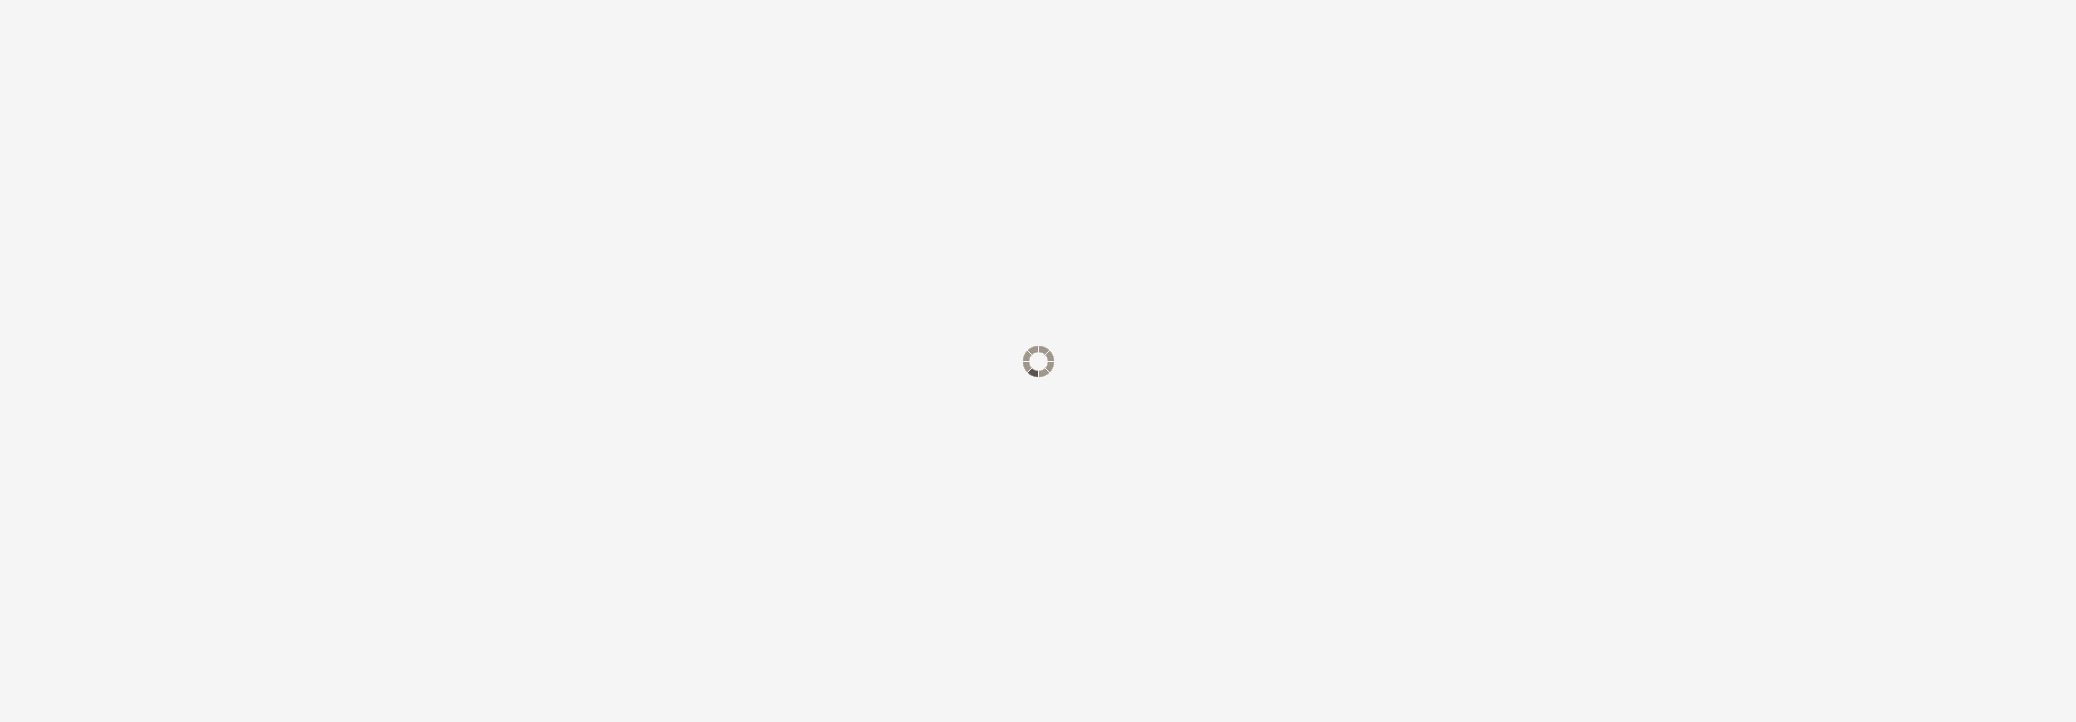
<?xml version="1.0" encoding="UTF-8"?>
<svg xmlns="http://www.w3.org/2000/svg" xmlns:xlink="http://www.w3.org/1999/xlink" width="2076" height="722">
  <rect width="100%" height="100%" fill="#f5f5f5" />
  <image x="1023" y="346" width="31" height="31" xlink:href="image1.png" />
</svg>
